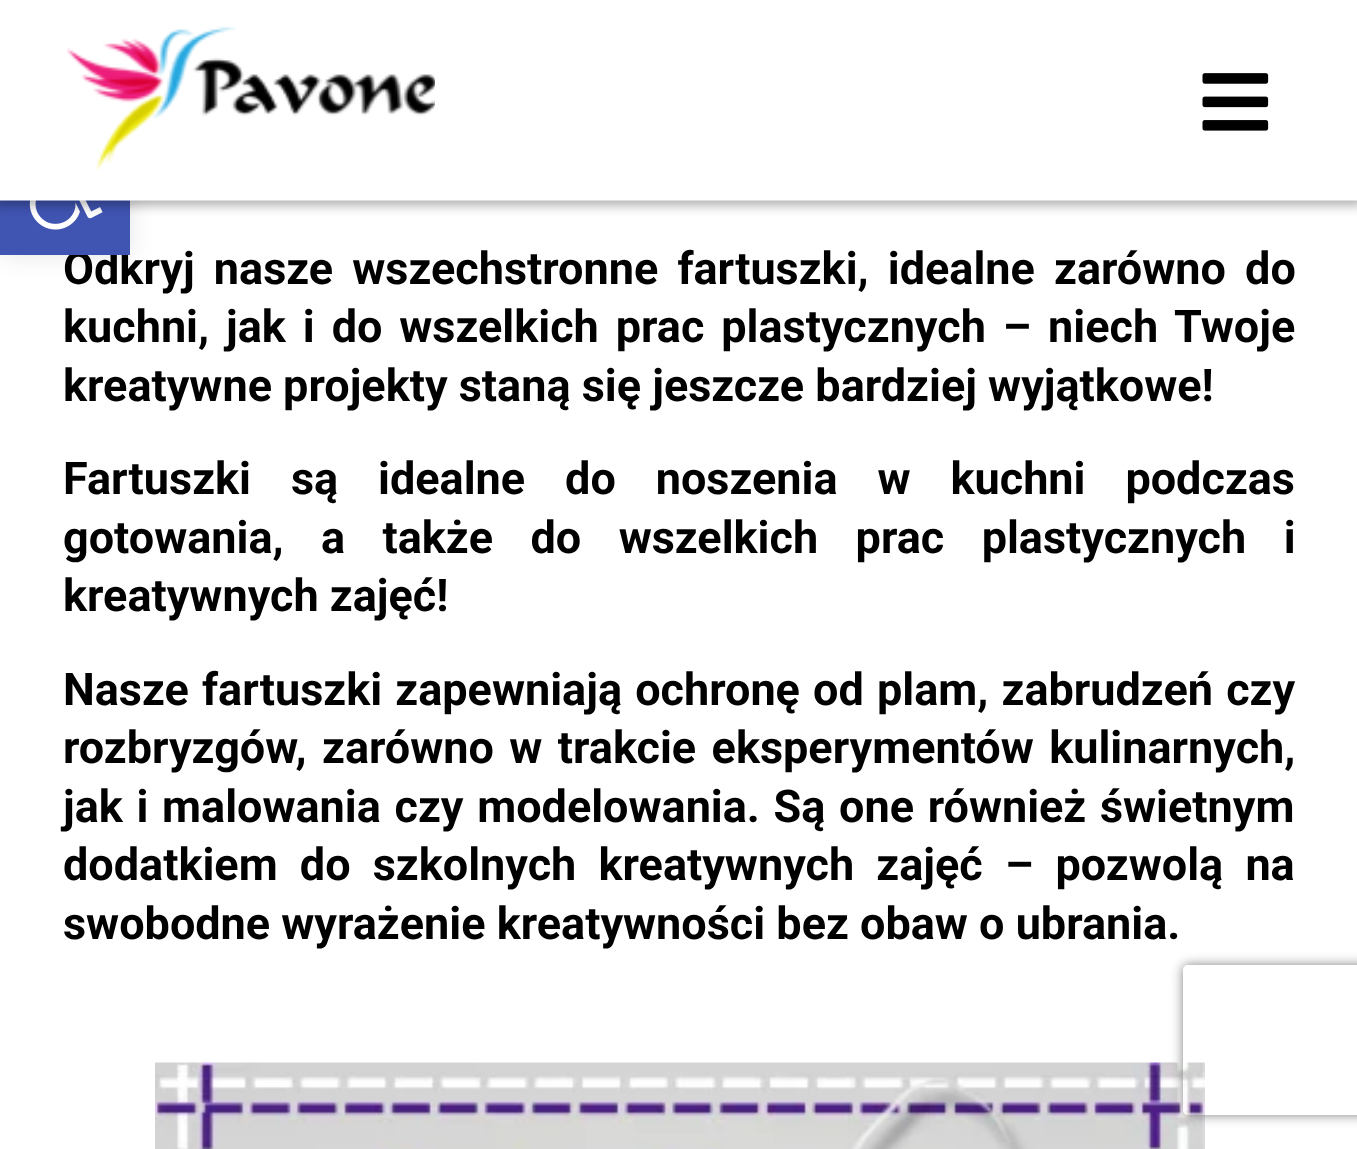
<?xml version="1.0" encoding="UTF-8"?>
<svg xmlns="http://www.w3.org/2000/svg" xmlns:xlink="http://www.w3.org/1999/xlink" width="1357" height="1149">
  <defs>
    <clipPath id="clip1"><path d="M 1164 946 h 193 v 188 h -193 z m 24 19 h 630 c 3 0 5 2 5 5 v 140 c 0 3 -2 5 -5 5 h -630 c -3 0 -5 -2 -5 -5 v -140 c 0 -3 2 -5 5 -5 z" clip-rule="evenodd" /></clipPath>
  </defs>
  <rect width="100%" height="100%" fill="#ffffff" />
  <rect y="125" width="130" height="130" fill="#000000" fill-opacity="0.1" filter="blur(12.5px)" />
  <image x="155" y="1062" width="1050" height="87" xlink:href="image4.png" />
  <g clip-path="url(#clip1)">
    <rect x="1183" y="965" width="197" height="150" rx="5" fill="#808080" filter="blur(6px)" />
  </g>
  <text x="63" y="284" word-spacing="8" style="font-family: Roboto; font-size: 45px; font-weight: bold; fill: #000000">Odkryj nasze wszechstronne fartuszki, idealne zarówno do</text>
  <rect y="200" width="130" height="55" fill="#4054b2" />
  <image x="29" y="200" width="74" height="30" xlink:href="image3.png" />
  <rect x="-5" y="-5" width="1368" height="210" fill="#000000" fill-opacity="0.33" filter="blur(6px)" />
  <rect width="1357" height="200" fill="#ffffff" />
  <image x="1202" y="73" width="67" height="58" xlink:href="image2.png" />
  <image x="67" y="26" width="368" height="144" xlink:href="image1.png" />
  <rect y="200" width="1357" height="1" fill="#ffffff" fill-opacity="0.5" />
  <text x="63" y="342" word-spacing="5.75" style="font-family: Roboto; font-size: 45px; font-weight: bold; fill: #000000">kuchni, jak i do wszelkich prac plastycznych – niech Twoje</text>
  <text x="63" y="401" style="font-family: Roboto; font-size: 45px; font-weight: bold; fill: #000000">kreatywne projekty staną się jeszcze bardziej wyjątkowe!</text>
  <text x="63" y="494" word-spacing="28.75" style="font-family: Roboto; font-size: 45px; font-weight: bold; fill: #000000">Fartuszki są idealne do noszenia w kuchni podczas</text>
  <text x="63" y="553" word-spacing="26.25" style="font-family: Roboto; font-size: 45px; font-weight: bold; fill: #000000">gotowania, a także do wszelkich prac plastycznych i</text>
  <text x="63" y="611" style="font-family: Roboto; font-size: 45px; font-weight: bold; fill: #000000">kreatywnych zajęć!</text>
  <text x="63" y="705" word-spacing="2" style="font-family: Roboto; font-size: 45px; font-weight: bold; fill: #000000">Nasze fartuszki zapewniają ochronę od plam, zabrudzeń czy</text>
  <text x="63" y="763" word-spacing="4.25" style="font-family: Roboto; font-size: 45px; font-weight: bold; fill: #000000">rozbryzgów, zarówno w trakcie eksperymentów kulinarnych,</text>
  <text x="63" y="822" word-spacing="2.5" style="font-family: Roboto; font-size: 45px; font-weight: bold; fill: #000000">jak i malowania czy modelowania. Są one również świetnym</text>
  <text x="63" y="880" word-spacing="11" style="font-family: Roboto; font-size: 45px; font-weight: bold; fill: #000000">dodatkiem do szkolnych kreatywnych zajęć – pozwolą na</text>
  <text x="63" y="939" style="font-family: Roboto; font-size: 45px; font-weight: bold; fill: #000000">swobodne wyrażenie kreatywności bez obaw o ubrania.</text>
</svg>
